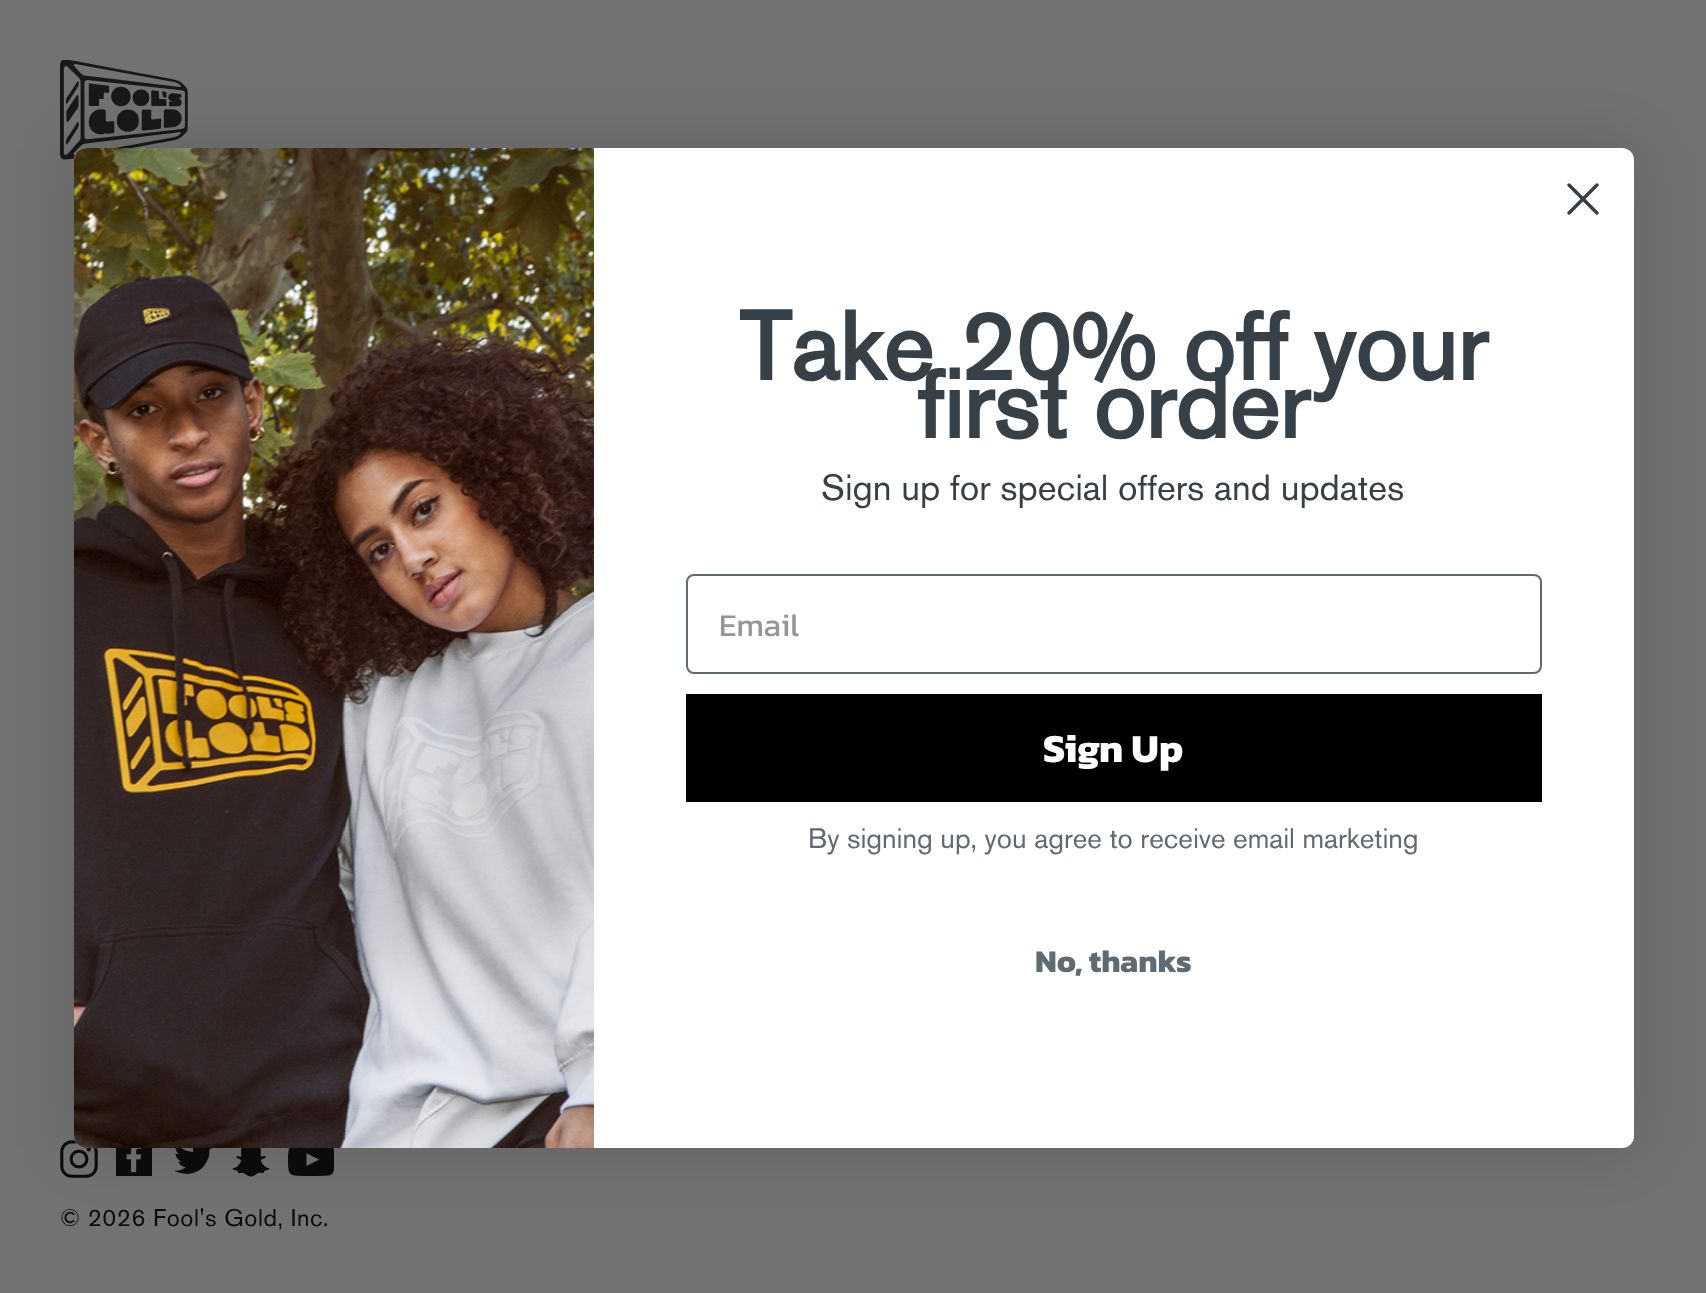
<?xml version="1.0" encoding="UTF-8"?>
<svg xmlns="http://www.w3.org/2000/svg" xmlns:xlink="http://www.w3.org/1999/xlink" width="1706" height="1293">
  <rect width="100%" height="100%" fill="#727272" />
  <image x="60" y="60" width="128" height="100" xlink:href="image2.png" />
  <image x="60" y="1140" width="38" height="38" xlink:href="image3.png" />
  <image x="116" y="1148" width="36" height="28" xlink:href="image4.png" />
  <image x="174" y="1148" width="38" height="26" xlink:href="image5.png" />
  <image x="232" y="1148" width="38" height="29" xlink:href="image6.png" />
  <image x="288" y="1148" width="46" height="28" xlink:href="image7.png" />
  <rect x="74" y="148" width="1560" height="1000" rx="12" fill="#000000" fill-opacity="0.15" filter="blur(30px)" />
  <rect x="74" y="148" width="1560" height="1000" rx="12" fill="#ffffff" />
  <path d="M 1569 185 l 28 28 m -28 0 l 28 -28 z" fill="none" stroke="#373f47" stroke-width="3.5" stroke-linecap="round" stroke-linejoin="round" />
  <image x="74" y="148" width="520" height="1000" xlink:href="image1.png" />
  <rect x="687" y="575" width="854" height="98" rx="7" fill="none" stroke="#606a72" stroke-width="2" />
  <rect x="686" y="694" width="856" height="108" fill="#000000" />
  <text x="739" y="380" style="font-family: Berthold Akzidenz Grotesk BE; font-size: 96px; font-weight: bold; fill: #373f47">Take 20% off your</text>
  <text x="917" y="438" style="font-family: Berthold Akzidenz Grotesk BE; font-size: 96px; font-weight: bold; fill: #373f47">first order</text>
  <text x="821" y="500" style="font-family: Berthold Akzidenz Grotesk BE; font-size: 36px; fill: #373f47">Sign up for special offers and updates</text>
  <text x="719" y="636" style="font-family: Kanit; font-size: 32px; fill: #949596">Email</text>
  <text x="1043" y="762" style="font-family: Kanit; font-size: 40px; font-weight: bold; fill: #ffffff">Sign Up</text>
  <text x="808" y="848" style="font-family: Berthold Akzidenz Grotesk BE; font-size: 28px; fill: #606a72">By signing up, you agree to receive email marketing</text>
  <text x="1035" y="972" style="font-family: Kanit; font-size: 32px; font-weight: bold; fill: #606a72">No, thanks</text>
  <text x="60" y="1226" style="font-family: Berthold Akzidenz Grotesk BE; font-size: 24px; letter-spacing: 0.6px; fill: #0c0c0c">© 2026 Fool's Gold, Inc.</text>
</svg>
